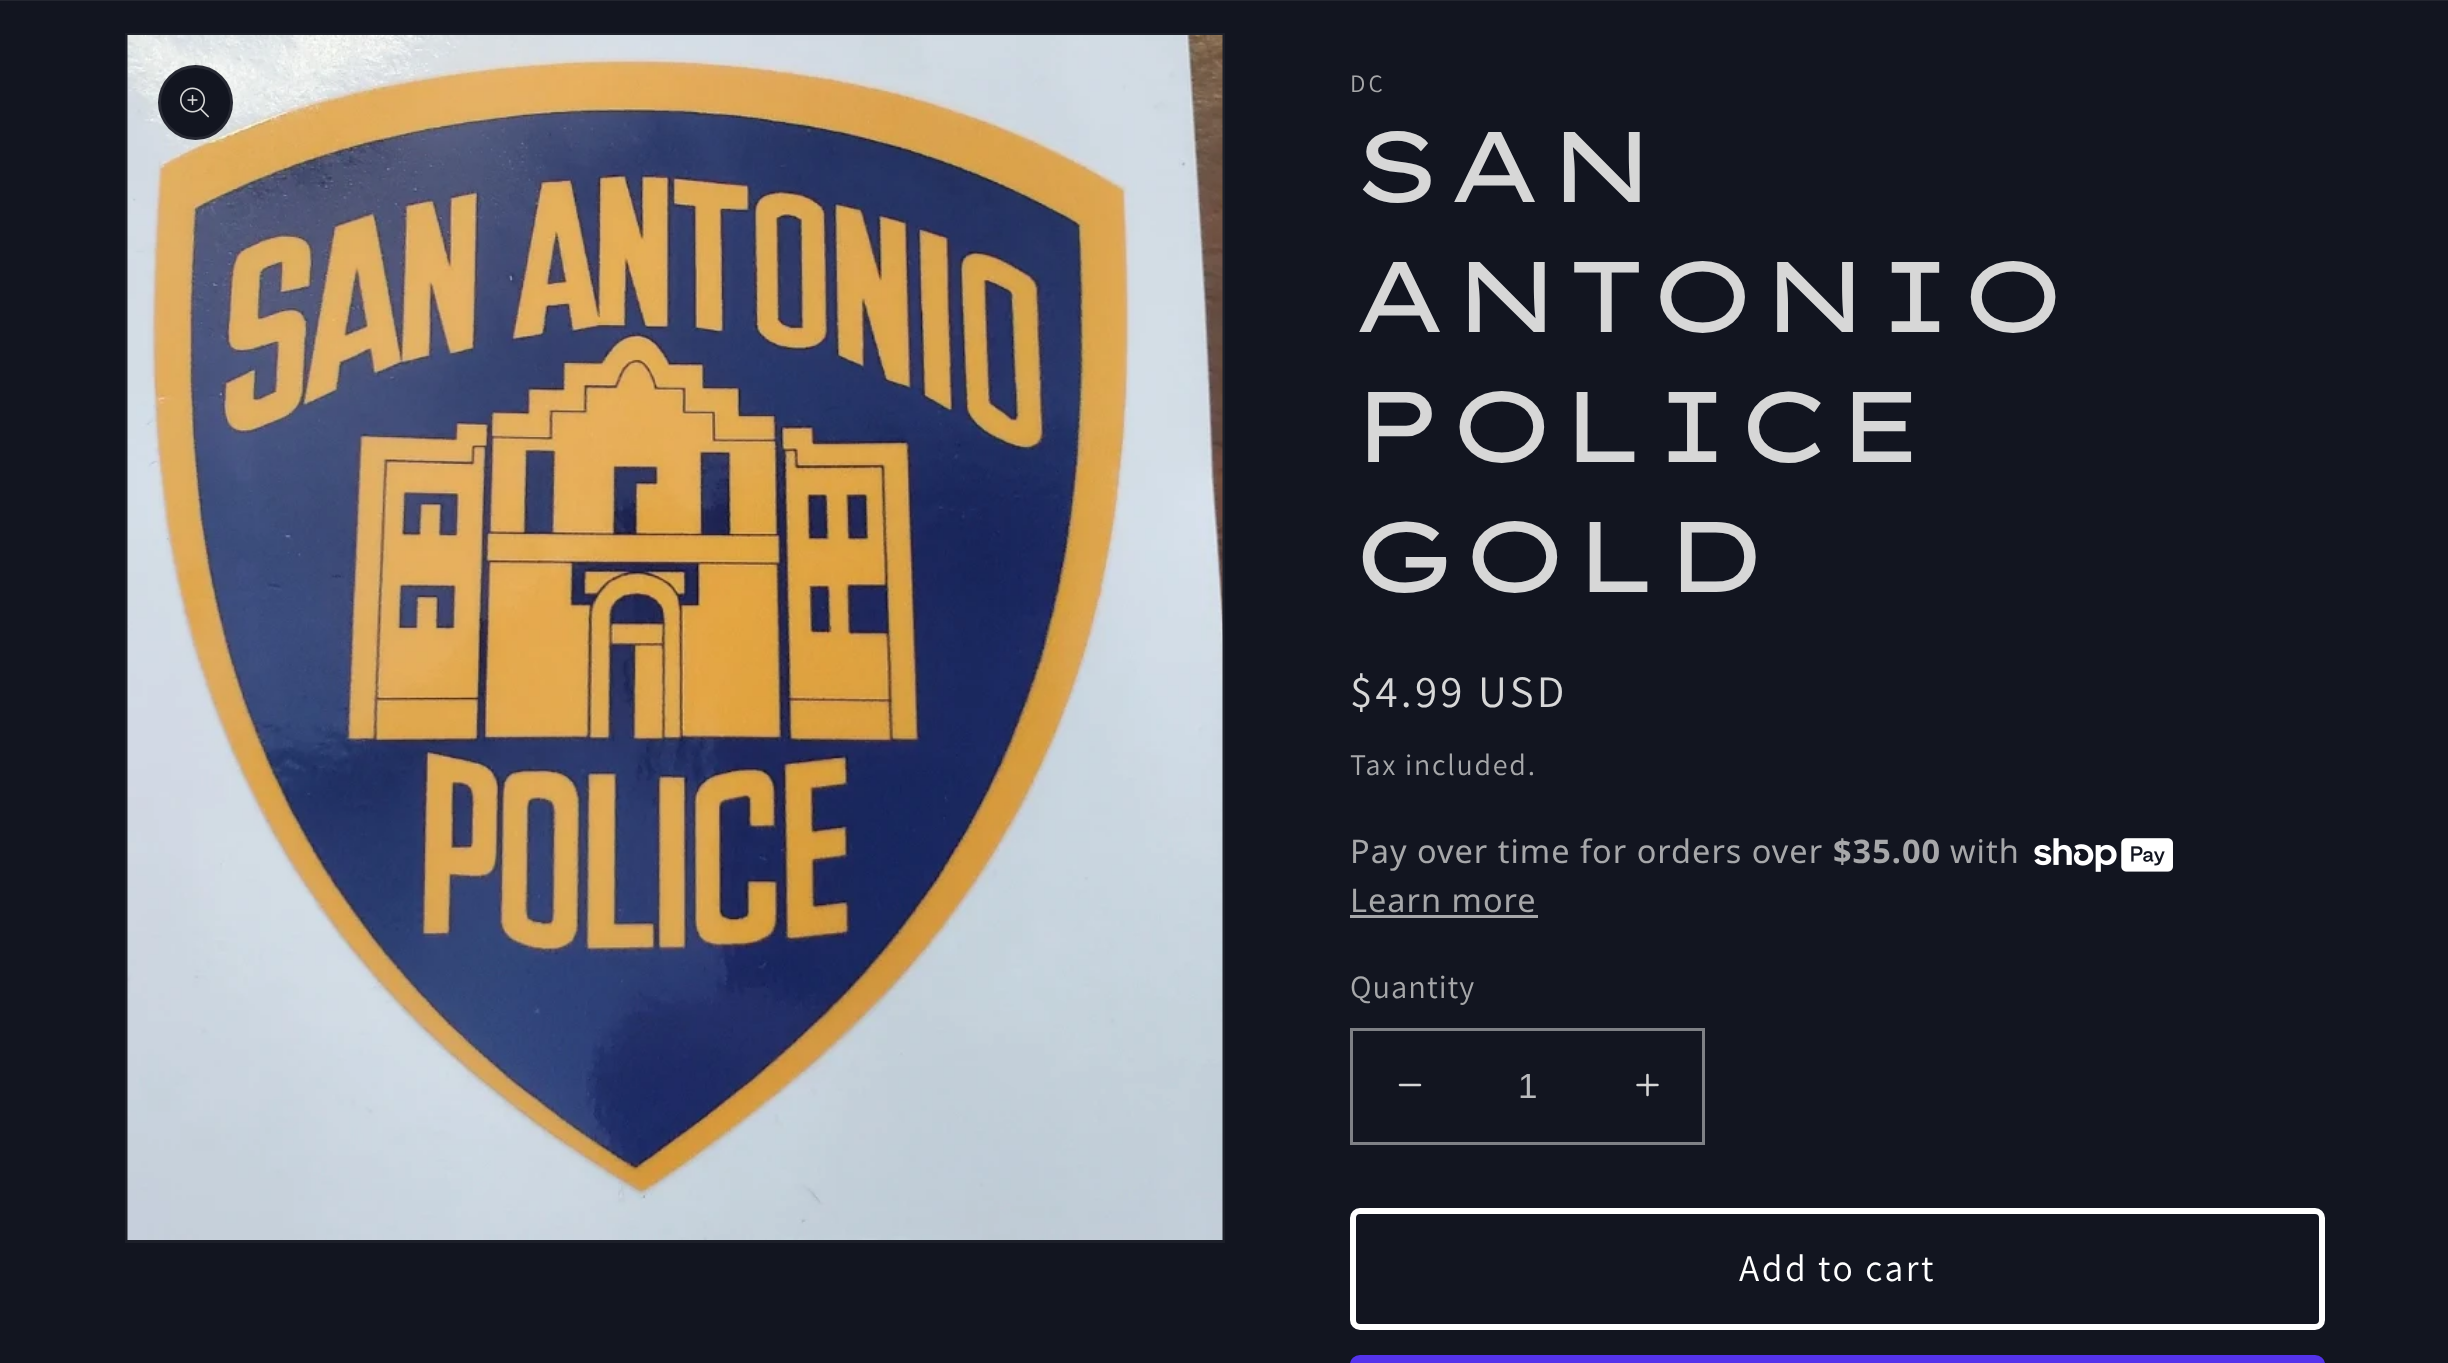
<?xml version="1.0" encoding="UTF-8"?>
<svg xmlns="http://www.w3.org/2000/svg" xmlns:xlink="http://www.w3.org/1999/xlink" width="2448" height="1363">
  <rect width="100%" height="100%" fill="#121520" />
  <rect width="2448" height="1" fill="#22252f" />
  <rect x="126.5" y="34.5" width="1097" height="1207" fill="none" stroke="#1c1f29" stroke-width="3" />
  <image x="127" y="35" width="1096" height="1205" xlink:href="image1.png" />
  <circle cx="195.5" cy="102.5" r="37.5" fill="#121520" />
  <circle cx="195.5" cy="102.5" r="36" fill="none" stroke="#d7d7d7" stroke-opacity="0.1" stroke-width="3" />
  <image x="180" y="87" width="29" height="31" xlink:href="image2.png" />
  <image x="2034" y="838" width="139" height="34" xlink:href="image3.png" />
  <rect x="1350" y="915" width="188" height="3" fill="#a6a7a9" />
  <image x="1398" y="1083" width="24" height="4" xlink:href="image4.png" />
  <image x="1636" y="1073" width="23" height="24" xlink:href="image5.png" />
  <rect x="1351.5" y="1029.5" width="352" height="114" fill="none" stroke="#7e8085" stroke-width="3" />
  <rect x="1353" y="1211" width="969" height="116" rx="7" fill="none" stroke="#ffffff" stroke-width="6" />
  <rect x="1350" y="1355" width="975" height="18" rx="10" fill="#5433eb" />
  <text x="1350" y="92" style="font-family: Assistant; font-size: 25px; letter-spacing: 3.25px; fill: #a6a7a9">DC</text>
  <text x="1350" y="202" style="font-family: Lexend Zetta; font-size: 100px; letter-spacing: 1.5px; fill: #d7d7d7">SAN</text>
  <text x="1350" y="332" style="font-family: Lexend Zetta; font-size: 100px; letter-spacing: 1.5px; fill: #d7d7d7">ANTONIO</text>
  <text x="1350" y="462" style="font-family: Lexend Zetta; font-size: 100px; letter-spacing: 1.5px; fill: #d7d7d7">POLICE</text>
  <text x="1350" y="592" style="font-family: Lexend Zetta; font-size: 100px; letter-spacing: 1.5px; fill: #d7d7d7">GOLD</text>
  <text x="1350" y="707" style="font-family: Assistant; font-size: 45px; letter-spacing: 3.25px; fill: #d7d7d7">$4.99 USD</text>
  <text x="1350" y="775" style="font-family: Assistant; font-size: 30px; letter-spacing: 1.75px; fill: #a6a7a9">Tax included.</text>
  <text x="1350" y="863" style="font-family: Noto Sans; font-size: 32.5px; letter-spacing: 1px; fill: #a6a7a9">Pay over time for orders over</text>
  <text x="1833" y="863" style="font-family: Noto Sans; font-size: 32.5px; font-weight: bold; letter-spacing: 1px; fill: #a6a7a9">$35.00</text>
  <text x="1950" y="863" style="font-family: Noto Sans; font-size: 32.5px; letter-spacing: 1px; fill: #a6a7a9">with</text>
  <text x="1350" y="912" style="font-family: Noto Sans; font-size: 32.5px; letter-spacing: 1px; fill: #a6a7a9">Learn more</text>
  <text x="1350" y="998" style="font-family: Assistant; font-size: 32.5px; letter-spacing: 1px; fill: #a6a7a9">Quantity</text>
  <text x="1518" y="1098" style="font-family: Liberation Sans; font-size: 35px; fill: #b9babc">1</text>
  <text x="1739" y="1281" style="font-family: Assistant; font-size: 37.5px; letter-spacing: 2.5px; fill: #ffffff">Add to cart</text>
</svg>
